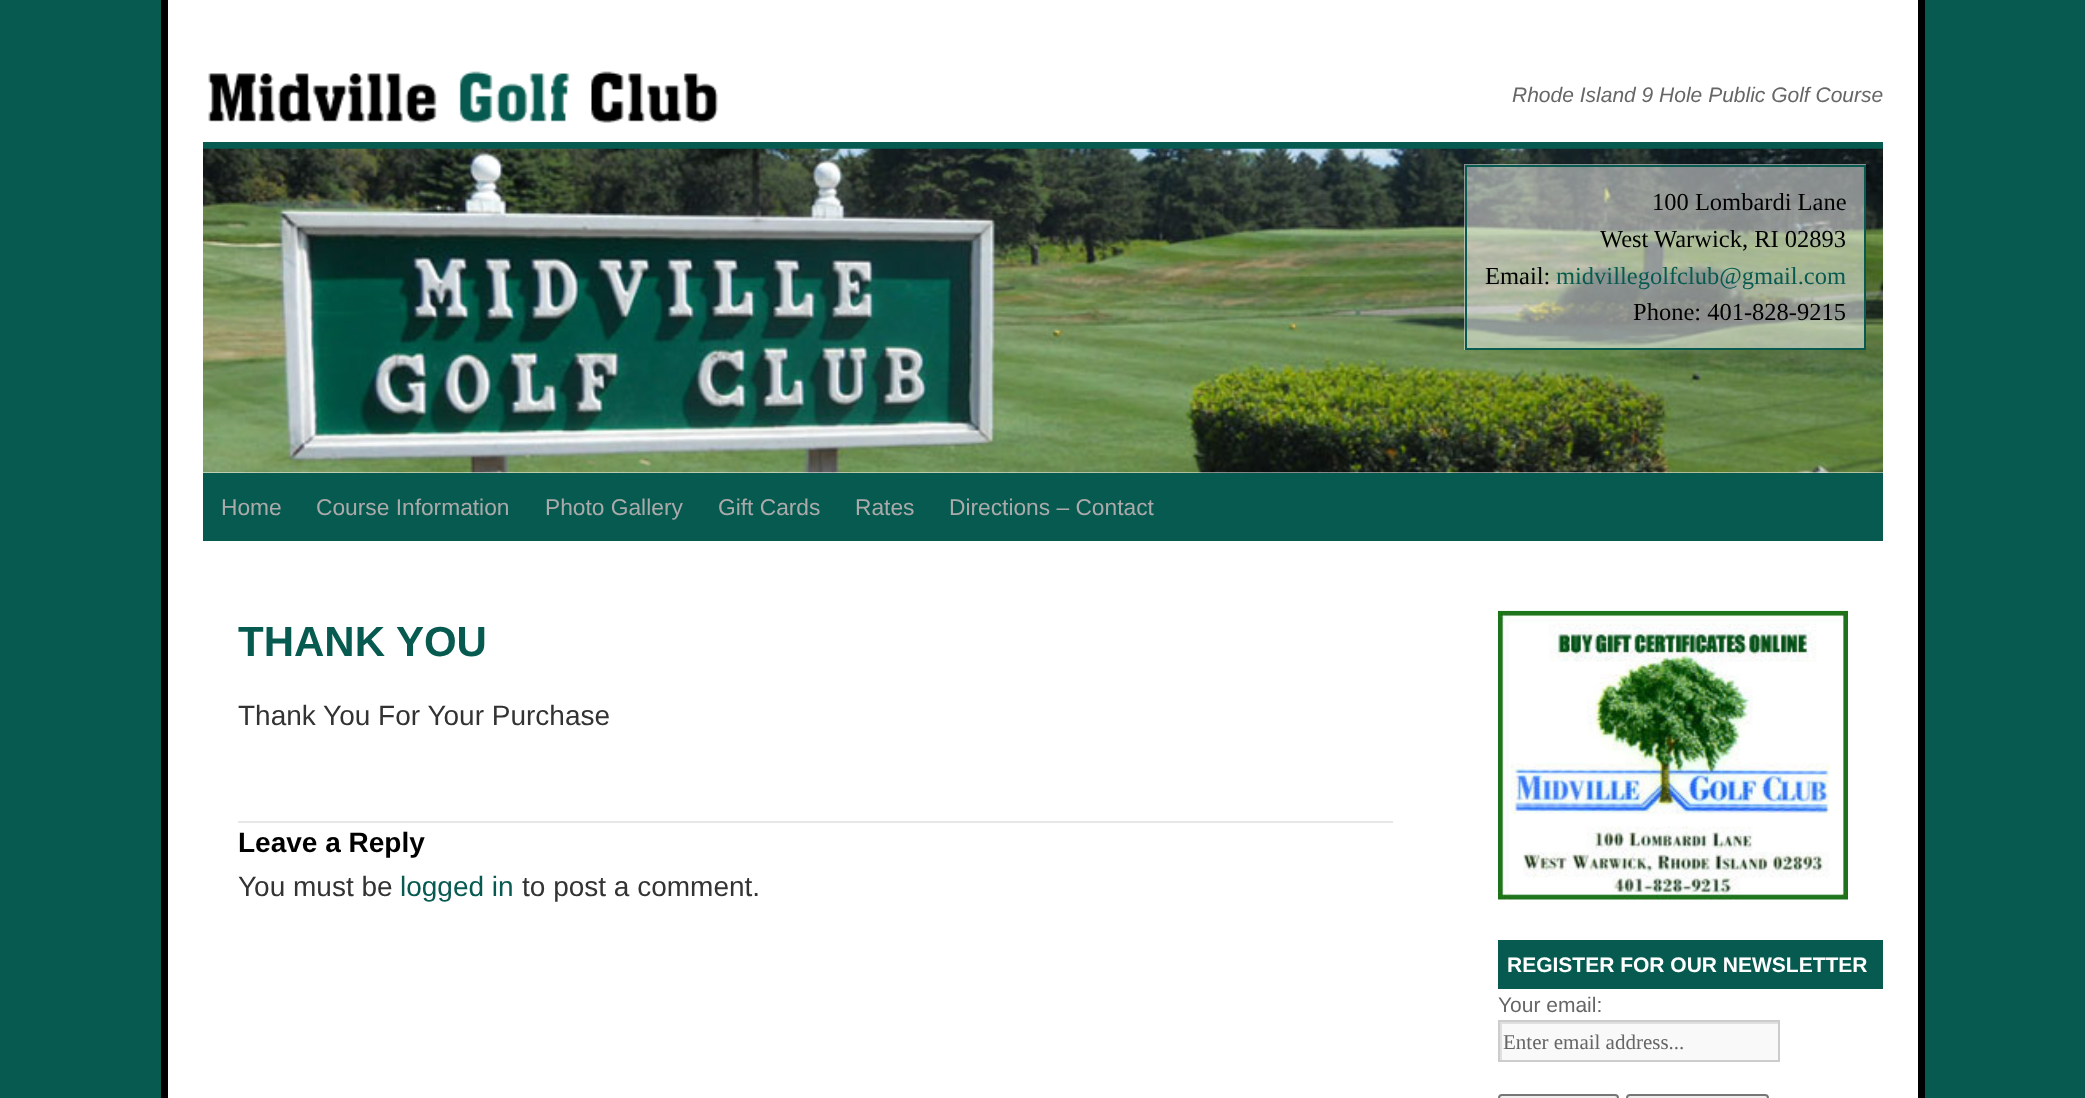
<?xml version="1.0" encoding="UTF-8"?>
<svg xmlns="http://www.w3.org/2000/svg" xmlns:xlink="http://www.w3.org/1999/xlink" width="2085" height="1098">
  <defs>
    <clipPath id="clip1"><rect x="1500" y="1022" width="278" height="39" /></clipPath>
  </defs>
  <rect width="100%" height="100%" fill="#075a50" />
  <rect x="168" width="1750" height="1098" fill="#ffffff" />
  <rect x="1918" width="7" height="1098" fill="#000000" />
  <rect x="161" width="7" height="1098" fill="#000000" />
  <image x="208" y="71" width="510" height="52" xlink:href="image1.png" />
  <rect x="203" y="142" width="1680" height="7" fill="#075a50" />
  <image x="203" y="148" width="1680" height="325" xlink:href="image2.png" />
  <rect x="1464" y="164" width="402" height="186" fill="#ffffff" fill-opacity="0.5" />
  <rect x="1466" y="166" width="399" height="183" fill="none" stroke="#075a50" stroke-width="2" />
  <rect x="203" y="473" width="1680" height="68" fill="#075a50" />
  <rect x="238" y="821" width="1155" height="2" fill="#e7e7e7" />
  <image x="1498" y="610" width="350" height="290" xlink:href="image3.png" />
  <rect x="1498" y="940" width="385" height="49" fill="#075a50" />
  <rect x="1502" y="1024" width="276" height="36" fill="#f9f9f9" />
  <g clip-path="url(#clip1)">
    <path d="M 1326 849 h 625 v 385 h -625 z m 176 175 h 278 v 38 h -278 z" fill="#e0e0e0" fill-rule="evenodd" />
  </g>
  <rect x="1499" y="1021" width="280" height="40" fill="none" stroke="#cccccc" stroke-width="2" />
  <rect x="1499" y="1095" width="119" height="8" rx="3" fill="#efefef" stroke="#767676" stroke-width="2" />
  <rect x="1627" y="1095" width="141" height="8" rx="3" fill="#efefef" stroke="#767676" stroke-width="2" />
  <text x="1512" y="102" style="font-family: Liberation Sans; font-size: 21px; font-style: italic; fill: #666666">Rhode Island 9 Hole Public Golf Course</text>
  <text x="1652" y="210" style="font-family: Liberation Serif; font-size: 24.5px; fill: #000000">100 Lombardi Lane</text>
  <text x="1600" y="247" style="font-family: Liberation Serif; font-size: 24.5px; fill: #000000">West Warwick, RI 02893</text>
  <text x="1485" y="284" style="font-family: Liberation Serif; font-size: 24.5px; fill: #000000">Email:</text>
  <text x="1556" y="284" style="font-family: Liberation Serif; font-size: 24.5px; fill: #075a50">midvillegolfclub@gmail.com</text>
  <text x="1633" y="320" style="font-family: Liberation Serif; font-size: 24.5px; fill: #000000">Phone: 401-828-9215</text>
  <text x="221" y="515" style="font-family: Liberation Sans; font-size: 22.75px; fill: #aaaaaa">Home</text>
  <text x="316" y="515" style="font-family: Liberation Sans; font-size: 22.75px; fill: #aaaaaa">Course Information</text>
  <text x="545" y="515" style="font-family: Liberation Sans; font-size: 22.75px; fill: #aaaaaa">Photo Gallery</text>
  <text x="718" y="515" style="font-family: Liberation Sans; font-size: 22.75px; fill: #aaaaaa">Gift Cards</text>
  <text x="855" y="515" style="font-family: Liberation Sans; font-size: 22.75px; fill: #aaaaaa">Rates</text>
  <text x="949" y="515" style="font-family: Liberation Sans; font-size: 22.75px; fill: #aaaaaa">Directions – Contact</text>
  <text x="238" y="656" style="font-family: Liberation Sans; font-size: 42px; font-weight: bold; fill: #075a50">THANK YOU</text>
  <text x="238" y="725" style="font-family: Liberation Sans; font-size: 28px; fill: #333333">Thank You For Your Purchase</text>
  <text x="238" y="852" style="font-family: Liberation Sans; font-size: 28px; font-weight: bold; fill: #000000">Leave a Reply</text>
  <text x="238" y="896" style="font-family: Liberation Sans; font-size: 28px; fill: #333333">You must be</text>
  <text x="400" y="896" style="font-family: Liberation Sans; font-size: 28px; fill: #075a50">logged in</text>
  <text x="522" y="896" style="font-family: Liberation Sans; font-size: 28px; fill: #333333">to post a comment.</text>
  <text x="1507" y="972" style="font-family: Liberation Sans; font-size: 21px; font-weight: bold; fill: #ffffff">REGISTER FOR OUR NEWSLETTER</text>
  <text x="1498" y="1012" style="font-family: Liberation Sans; font-size: 21px; fill: #666666">Your email:</text>
  <text x="1503" y="1049" style="font-family: Liberation Serif; font-size: 21px; fill: #666666">Enter email address...</text>
</svg>
